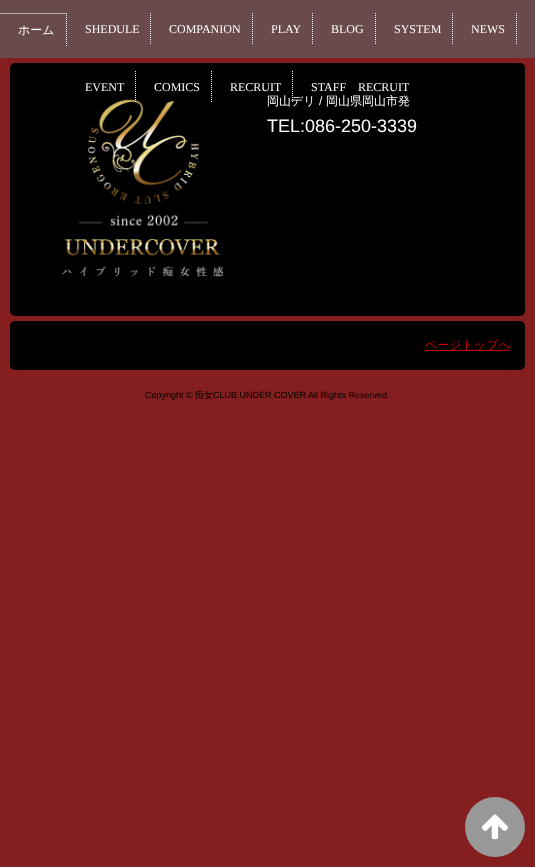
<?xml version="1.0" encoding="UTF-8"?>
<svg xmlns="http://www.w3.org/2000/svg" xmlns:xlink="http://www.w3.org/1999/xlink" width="535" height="867">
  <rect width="100%" height="100%" fill="#851e1e" />
  <rect width="535" height="58" fill="#6a4b4b" />
  <rect y="13" width="67" height="1" fill="#aaaaaa" />
  <path d="M 66.5 13 v 33" fill="none" stroke="#ffffff" stroke-dasharray="1 1" />
  <path d="M 150.5 13 v 32" fill="none" stroke="#ffffff" stroke-dasharray="1 1" />
  <path d="M 252.5 13 v 32 m 60 -32 v 32" fill="none" stroke="#ffffff" stroke-dasharray="1 1" />
  <path d="M 375.5 13 v 32" fill="none" stroke="#ffffff" stroke-dasharray="1 1" />
  <path d="M 452.5 13 v 32" fill="none" stroke="#ffffff" stroke-dasharray="1 1" />
  <path d="M 516.5 13 v 32" fill="none" stroke="#ffffff" stroke-dasharray="1 1" />
  <rect x="10" y="63" width="515" height="253" rx="5" fill="#000000" />
  <image x="61" y="99" width="163" height="178" xlink:href="image1.png" />
  <path d="M 135.5 71 v 32" fill="none" stroke="#ffffff" stroke-dasharray="1 1" />
  <path d="M 211.5 71 v 32" fill="none" stroke="#ffffff" stroke-dasharray="1 1" />
  <path d="M 292.5 71 v 32" fill="none" stroke="#ffffff" stroke-dasharray="1 1" />
  <rect x="10" y="321" width="515" height="49" rx="5" fill="#000000" />
  <rect x="425" y="350" width="85" height="1" fill="#cc0000" />
  <circle cx="495" cy="827" r="30" fill="#999999" />
  <image x="481" y="814" width="27" height="26" xlink:href="image2.png" />
  <text x="18" y="34" style="font-family: WenQuanYi Zen Hei; font-size: 12px; font-weight: 500; fill: #ffffff">ホーム</text>
  <text x="85" y="33" style="font-family: Liberation Serif; font-size: 12px; fill: #ffffff">SHEDULE</text>
  <text x="169" y="33" style="font-family: Liberation Serif; font-size: 12px; fill: #ffffff">COMPANION</text>
  <text x="271" y="33" style="font-family: Liberation Serif; font-size: 12px; fill: #ffffff">PLAY</text>
  <text x="331" y="33" style="font-family: Liberation Serif; font-size: 12px; fill: #ffffff">BLOG</text>
  <text x="394" y="33" style="font-family: Liberation Serif; font-size: 12px; fill: #ffffff">SYSTEM</text>
  <text x="471" y="33" style="font-family: Liberation Serif; font-size: 12px; fill: #ffffff">NEWS</text>
  <text x="85" y="91" style="font-family: Liberation Serif; font-size: 12px; fill: #ffffff">EVENT</text>
  <text x="154" y="91" style="font-family: Liberation Serif; font-size: 12px; fill: #ffffff">COMICS</text>
  <text x="230" y="91" style="font-family: Liberation Serif; font-size: 12px; fill: #ffffff">RECRUIT</text>
  <text x="311" y="91" style="font-family: Liberation Serif; font-size: 12px; fill: #ffffff">STAFF</text>
  <text x="358" y="91" style="font-family: Liberation Serif; font-size: 12px; fill: #ffffff">RECRUIT</text>
  <text x="267" y="105" style="font-family: WenQuanYi Zen Hei; font-size: 12px; font-weight: 500; fill: #ffffff">岡山デリ</text>
  <text x="319" y="105" style="font-family: Liberation Sans; font-size: 12px; fill: #ffffff">/</text>
  <text x="326" y="105" style="font-family: WenQuanYi Zen Hei; font-size: 12px; font-weight: 500; fill: #ffffff">岡山県岡山市発</text>
  <text x="267" y="132" style="font-family: Liberation Sans; font-size: 18px; fill: #ffffff">TEL:086-250-3339</text>
  <text x="425" y="349" style="font-family: WenQuanYi Zen Hei; font-size: 12px; font-weight: 500; fill: #cc0000">ページトップへ</text>
  <text x="145" y="398" style="font-family: Liberation Sans; font-size: 9px; fill: #000000">Copyright ©</text>
  <text x="195" y="398" style="font-family: WenQuanYi Zen Hei; font-size: 9px; font-weight: 500; fill: #000000">痴女</text>
  <text x="213" y="398" style="font-family: Liberation Sans; font-size: 9px; fill: #000000">CLUB UNDER COVER All Rights Reserved.</text>
</svg>
